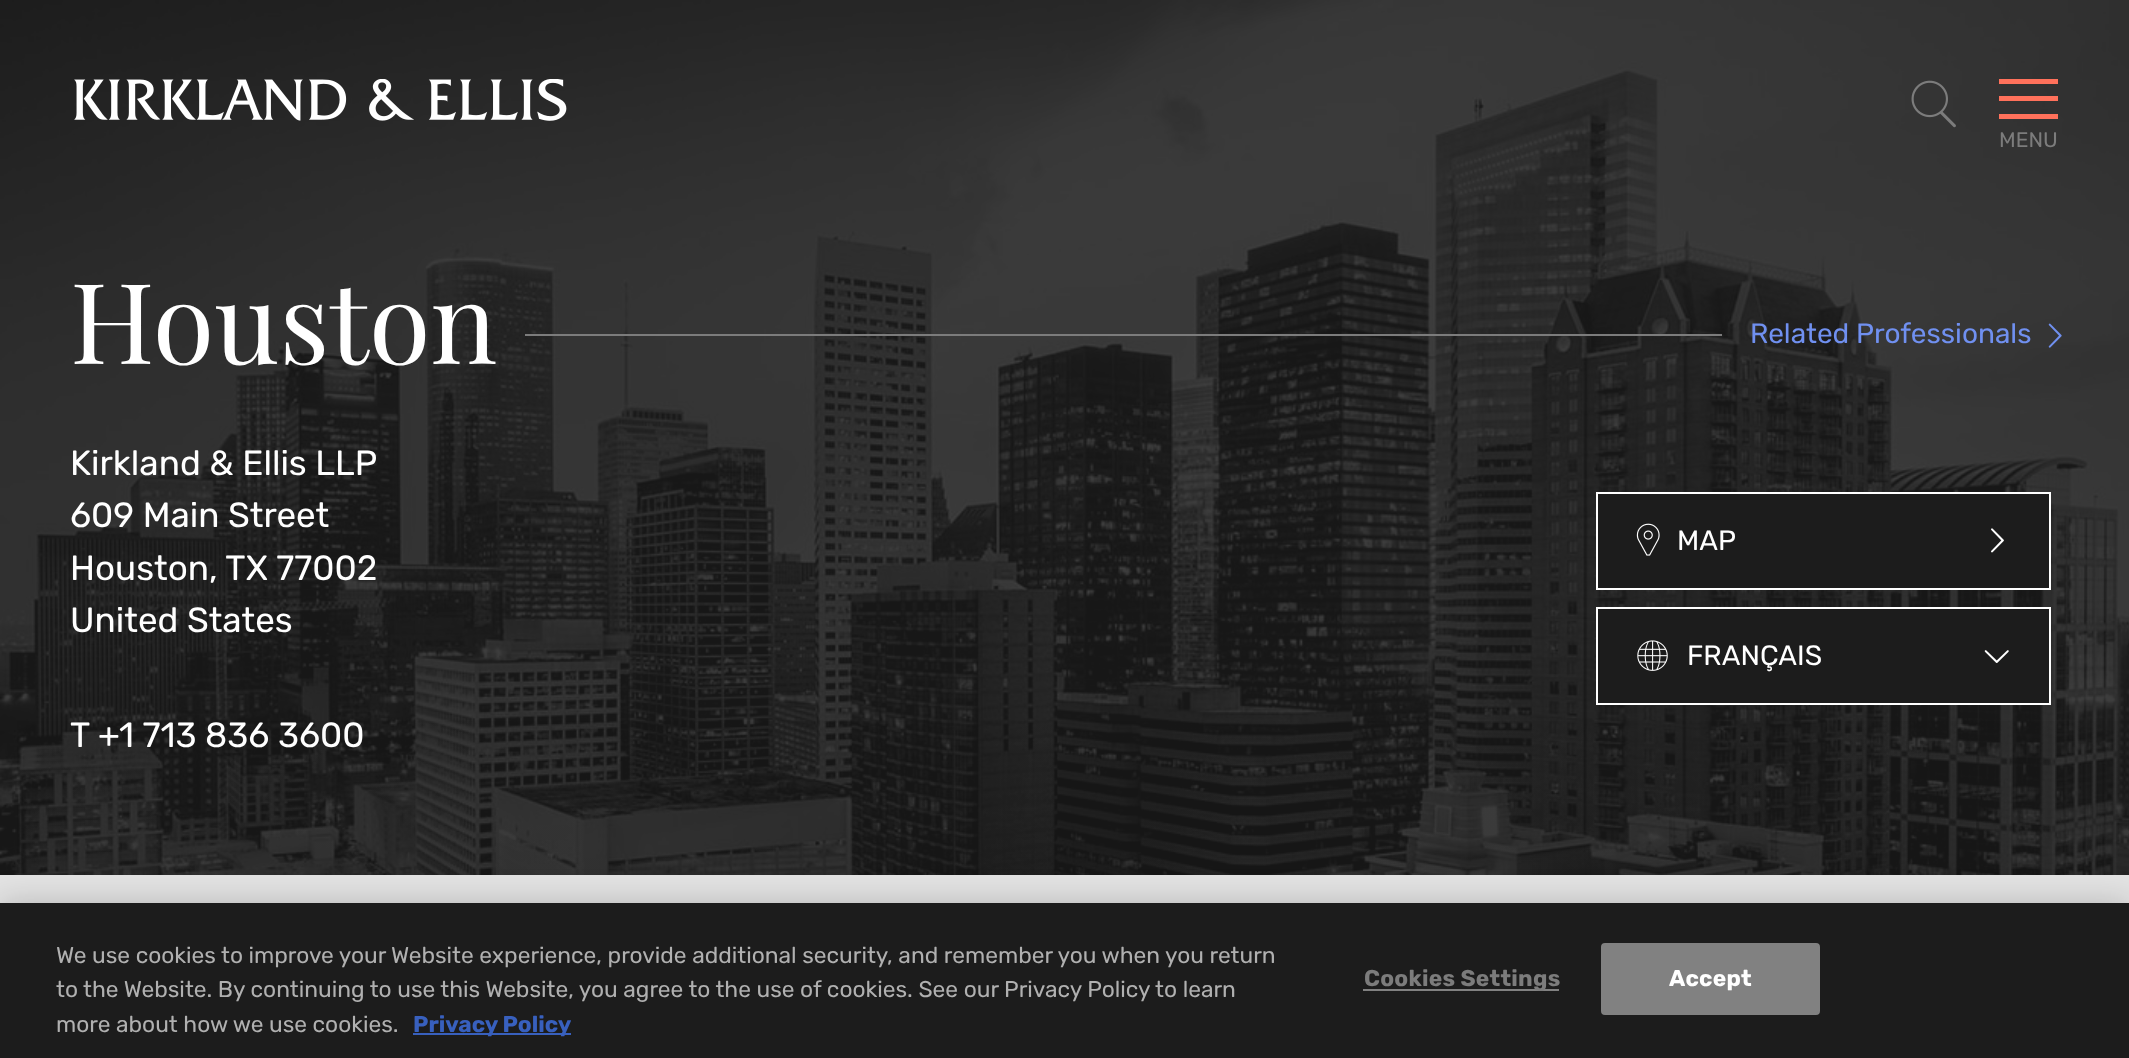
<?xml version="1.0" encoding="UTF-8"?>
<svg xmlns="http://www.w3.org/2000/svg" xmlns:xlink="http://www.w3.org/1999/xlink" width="2129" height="1058">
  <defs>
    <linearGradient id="g1" gradientUnits="userSpaceOnUse" x1="1065" y1="0" x2="1065" y2="875"><stop offset="0" stop-color="#000000" stop-opacity="0" /><stop offset="1" stop-color="#000000" stop-opacity="0.05" /></linearGradient>
  </defs>
  <rect width="100%" height="100%" fill="#e3e3e3" />
  <rect width="2129" height="875" fill="#1c1c1c" />
  <image x="0" y="0" width="2129" height="875" xlink:href="image3.png" />
  <image x="74" y="79" width="493" height="42" xlink:href="image1.png" />
  <image x="1911" y="80" width="45" height="48" xlink:href="image2.png" />
  <rect x="1999" y="96" width="59" height="5" fill="#ff715b" />
  <rect x="1999" y="79" width="59" height="5" fill="#ff715b" />
  <rect x="1999" y="114" width="59" height="5" fill="#ff715b" />
  <rect x="17" y="721" width="2112" height="154" fill="url(#g1)" />
  <rect x="525" y="334" width="1197" height="2" fill="#7c7c7c" />
  <image x="2048" y="323" width="14" height="25" xlink:href="image4.png" />
  <rect x="1597" y="493" width="453" height="96" fill="#1c1c1c" stroke="#ffffff" stroke-width="2" />
  <image x="1636" y="523" width="24" height="33" xlink:href="image5.png" />
  <image x="1991" y="528" width="13" height="25" xlink:href="image6.png" />
  <rect x="1597" y="608" width="453" height="96" fill="#1c1c1c" stroke="#ffffff" stroke-width="2" />
  <image x="1637" y="640" width="31" height="31" xlink:href="image7.png" />
  <image x="1984" y="650" width="25" height="13" xlink:href="image8.png" />
  <rect y="903" width="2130" height="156" fill="#000000" fill-opacity="0.2" filter="blur(16px)" />
  <rect y="903" width="2129" height="155" fill="#1c1c1c" />
  <rect x="413" y="1033" width="158" height="2" fill="#3860be" />
  <rect x="1363" y="989" width="196" height="2" fill="#818181" />
  <rect x="1602" y="944" width="217" height="70" rx="3" fill="#818181" stroke="#818181" stroke-width="2" />
  <text x="1999" y="147" style="font-family: Rubik; font-size: 21px; fill: #7c7c7c">MENU</text>
  <text x="70" y="364" style="font-family: Playfair Display; font-size: 112px; fill: #ffffff">Houston</text>
  <text x="1750" y="343" style="font-family: Rubik; font-size: 28px; fill: #7090f0">Related Professionals</text>
  <text x="70" y="475" style="font-family: Rubik; font-size: 35px; fill: #ffffff">Kirkland &amp; Ellis LLP</text>
  <text x="70" y="527" style="font-family: Rubik; font-size: 35px; fill: #ffffff">609 Main Street</text>
  <text x="70" y="580" style="font-family: Rubik; font-size: 35px; fill: #ffffff">Houston, TX 77002</text>
  <text x="70" y="632" style="font-family: Rubik; font-size: 35px; fill: #ffffff">United States</text>
  <text x="70" y="747" style="font-family: Rubik; font-size: 35px; fill: #ffffff">T +1 713 836 3600</text>
  <text x="1677" y="550" style="font-family: Rubik; font-size: 28px; fill: #ffffff">MAP</text>
  <text x="1687" y="665" style="font-family: Rubik; font-size: 28px; fill: #ffffff">FRANÇAIS</text>
  <text x="56" y="963" style="font-family: Rubik; font-size: 22.75px; fill: #b0b0b0">We use cookies to improve your Website experience, provide additional security, and remember you when you return</text>
  <text x="56" y="997" style="font-family: Rubik; font-size: 22.75px; fill: #b0b0b0">to the Website. By continuing to use this Website, you agree to the use of cookies. See our Privacy Policy to learn</text>
  <text x="56" y="1032" style="font-family: Rubik; font-size: 22.75px; fill: #b0b0b0">more about how we use cookies.</text>
  <text x="413" y="1032" style="font-family: Rubik; font-size: 22.75px; font-weight: bold; fill: #3860be">Privacy Policy</text>
  <text x="1364" y="986" style="font-family: Rubik; font-size: 22.75px; font-weight: bold; letter-spacing: 0.25px; fill: #7c7c7c">Cookies Settings</text>
  <text x="1669" y="986" style="font-family: Rubik; font-size: 22.75px; font-weight: bold; letter-spacing: 0.25px; fill: #ffffff">Accept</text>
</svg>
